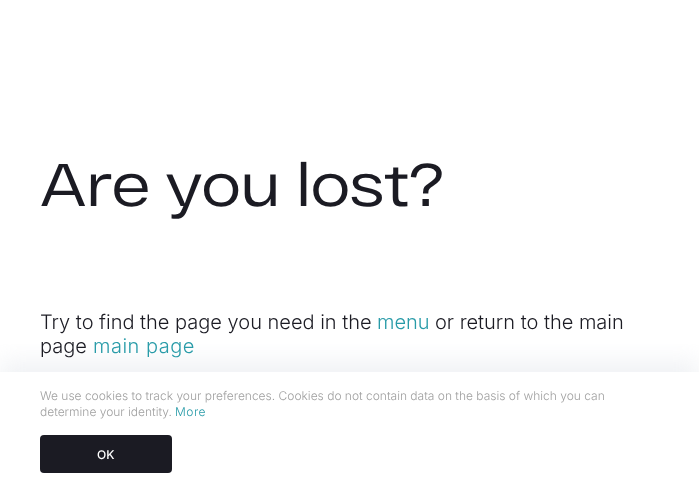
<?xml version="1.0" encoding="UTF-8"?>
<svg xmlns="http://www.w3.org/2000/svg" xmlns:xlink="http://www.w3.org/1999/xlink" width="699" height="489">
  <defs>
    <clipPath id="clip1"><rect x="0" y="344" width="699" height="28" /></clipPath>
  </defs>
  <rect width="100%" height="100%" fill="#ffffff" />
  <g clip-path="url(#clip1)">
    <rect y="362" width="699" height="117" fill="#c0c9d3" fill-opacity="0.25" filter="blur(12.5px)" />
  </g>
  <rect x="40" y="435" width="132" height="38" rx="4" fill="#1b1b23" />
  <text x="40" y="206" style="font-family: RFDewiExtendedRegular; font-size: 60px; fill: #1b1b23">Are you lost?</text>
  <text x="40" y="329" style="font-family: Inter; font-size: 20px; font-weight: 300; fill: #1b1b23">Try to find the page you need in the</text>
  <text x="377" y="329" style="font-family: Inter; font-size: 20px; font-weight: 300; fill: #289ba8">menu</text>
  <text x="435" y="329" style="font-family: Inter; font-size: 20px; font-weight: 300; fill: #1b1b23">or return to the main</text>
  <text x="40" y="353" style="font-family: Inter; font-size: 20px; font-weight: 300; fill: #1b1b23">page</text>
  <text x="93" y="353" style="font-family: Inter; font-size: 20px; font-weight: 300; letter-spacing: 0.5px; fill: #289ba8">main page</text>
  <text x="40" y="400" style="font-family: Inter; font-size: 12px; font-weight: 300; fill: #a0a0a0">We use cookies to track your preferences. Cookies do not contain data on the basis of which you can</text>
  <text x="40" y="416" style="font-family: Inter; font-size: 12px; font-weight: 300; fill: #a0a0a0">determine your identity.</text>
  <text x="175" y="416" style="font-family: Inter; font-size: 12px; font-weight: 300; letter-spacing: 0.5px; fill: #289ba8">More</text>
  <text x="97" y="459" style="font-family: Inter; font-size: 12px; font-weight: 500; fill: #ffffff">OK</text>
</svg>
